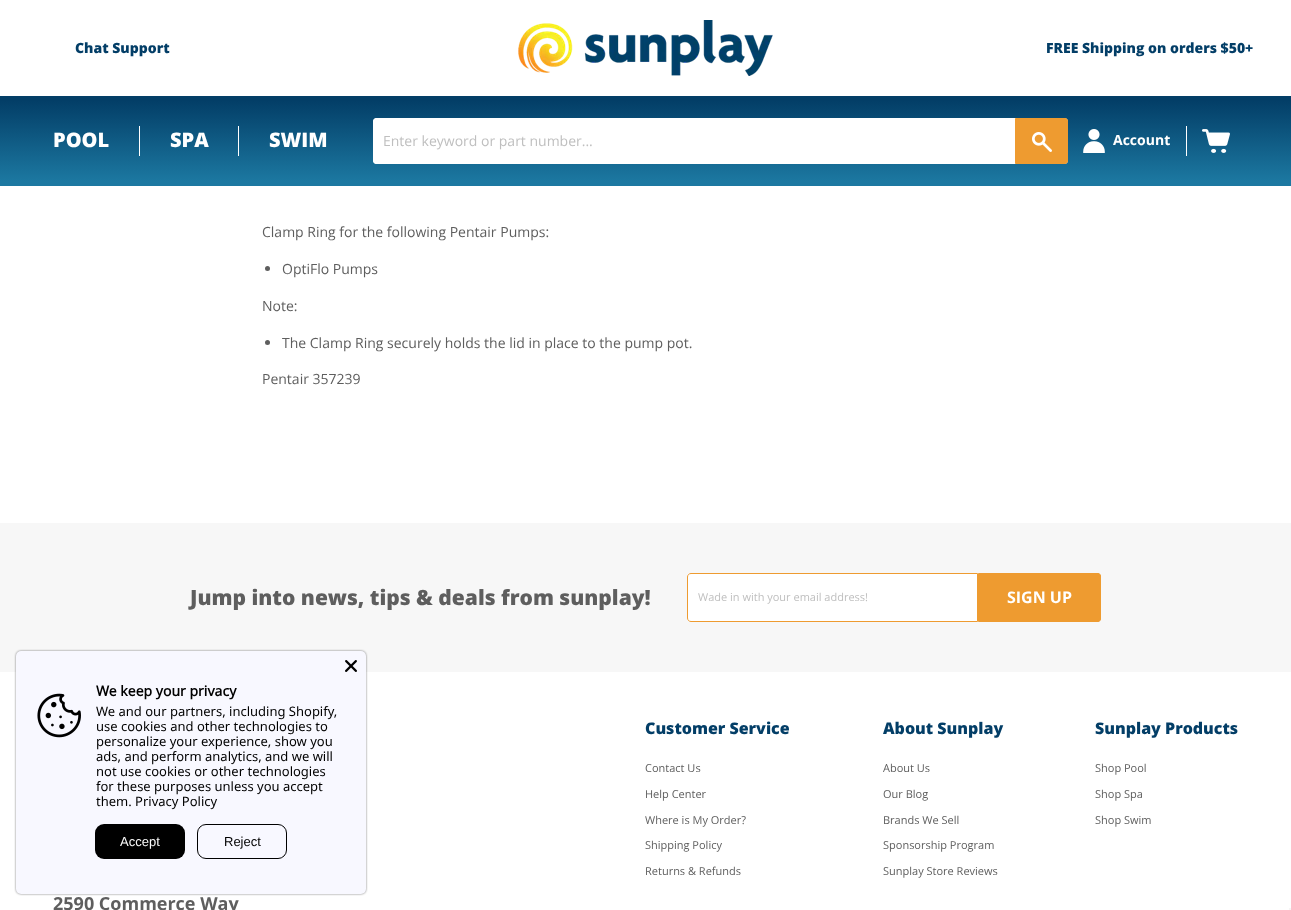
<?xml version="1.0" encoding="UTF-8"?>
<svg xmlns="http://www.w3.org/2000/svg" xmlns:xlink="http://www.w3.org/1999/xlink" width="1291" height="910">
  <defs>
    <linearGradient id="g1" gradientUnits="userSpaceOnUse" x1="646" y1="96" x2="646" y2="186"><stop offset="0.05" stop-color="#033e67" /><stop offset="0.95" stop-color="#1c78a1" /></linearGradient>
  </defs>
  <rect width="100%" height="100%" fill="#ffffff" />
  <image x="518" y="20" width="255" height="56" xlink:href="image1.png" />
  <rect y="96" width="1291" height="90" fill="url(#g1)" />
  <rect x="139" y="126" width="1" height="30" fill="#ffffff" />
  <rect x="238" y="126" width="1" height="30" fill="#ffffff" />
  <rect x="373" y="118" width="695" height="46" rx="4" fill="#ffffff" />
  <rect x="373" y="118" width="642" height="46" rx="4" fill="#ffffff" />
  <path d="M 1015.5 118.5 h 49.5 c 1.5 0 2.5 1 2.5 2.5 v 40 c 0 1.5 -1 2.5 -2.5 2.5 h -49.5 z" fill="#ee9b30" stroke="#ee9b30" />
  <image x="1032" y="132" width="20" height="20" xlink:href="image2.png" />
  <rect x="1186" y="126" width="1" height="30" fill="#ffffff" />
  <image x="1083" y="129" width="22" height="24" xlink:href="image3.png" />
  <image x="1202" y="129" width="28" height="24" xlink:href="image4.png" />
  <circle cx="267.5" cy="268.5" r="2.5" fill="#5e5e5e" />
  <circle cx="267.5" cy="342.5" r="2.5" fill="#5e5e5e" />
  <rect y="523" width="1291" height="149" fill="#f7f7f7" />
  <path d="M 691 573.5 h 286.5 v 48 h -286.5 c -2 0 -3.5 -1.5 -3.5 -3.5 v -41 c 0 -2 1.5 -3.5 3.5 -3.5 z" fill="#ffffff" stroke="#ee9b30" />
  <path d="M 978.5 573.5 h 119.5 c 1.5 0 2.5 1 2.5 2.5 v 43 c 0 1.5 -1 2.5 -2.5 2.5 h -119.5 z" fill="#ee9b30" stroke="#ee9b30" />
  <rect x="16" y="651" width="350" height="243" rx="5" fill="#000000" fill-opacity="0.5" filter="blur(1px)" />
  <rect x="16" y="651" width="350" height="243" rx="5" fill="#f8f8ff" />
  <image x="345" y="660" width="12" height="12" xlink:href="image5.png" />
  <image x="37" y="693" width="44" height="45" xlink:href="image6.png" />
  <rect x="95" y="824" width="90" height="35" rx="9" fill="#000000" />
  <rect x="197.5" y="824.5" width="89" height="34" rx="8.5" fill="none" stroke="#000000" />
  <rect x="1289" y="908" width="2" height="2" fill="#f5f5f5" />
  <text x="75" y="53" style="font-family: Open Sans; font-size: 14px; font-weight: 800; fill: #033e67">Chat Support</text>
  <text x="1046" y="53" style="font-family: Open Sans; font-size: 14px; font-weight: 800; fill: #033e67">FREE Shipping on orders $50+</text>
  <text x="53" y="147" style="font-family: Open Sans; font-size: 20px; font-weight: 800; fill: #ffffff">POOL</text>
  <text x="170" y="147" style="font-family: Open Sans; font-size: 20px; font-weight: 800; fill: #ffffff">SPA</text>
  <text x="269" y="147" style="font-family: Open Sans; font-size: 20px; font-weight: 800; fill: #ffffff">SWIM</text>
  <text x="383" y="146" style="font-family: Open Sans; font-size: 14px; fill: #bfbfbf">Enter keyword or part number...</text>
  <text x="1113" y="145" style="font-family: Open Sans; font-size: 14px; font-weight: bold; fill: #ffffff">Account</text>
  <text x="262" y="237" style="font-family: Open Sans; font-size: 14px; fill: #5e5e5e">Clamp Ring for the following Pentair Pumps:</text>
  <text x="282" y="274" style="font-family: Open Sans; font-size: 14px; fill: #5e5e5e">OptiFlo Pumps</text>
  <text x="262" y="311" style="font-family: Open Sans; font-size: 14px; fill: #5e5e5e">Note:</text>
  <text x="282" y="348" style="font-family: Open Sans; font-size: 14px; fill: #5e5e5e">The Clamp Ring securely holds the lid in place to the pump pot.</text>
  <text x="262" y="384" style="font-family: Open Sans; font-size: 14px; fill: #5e5e5e">Pentair 357239</text>
  <text x="190" y="605" style="font-family: Open Sans; font-size: 21px; font-weight: 800; fill: #5e5e5e">Jump into news, tips &amp; deals from sunplay!</text>
  <text x="698" y="601" style="font-family: Open Sans; font-size: 11px; fill: #bfbfbf">Wade in with your email address!</text>
  <text x="1007" y="603" style="font-family: Open Sans; font-size: 16px; font-weight: bold; fill: #ffffff">SIGN UP</text>
  <text x="645" y="734" style="font-family: Open Sans; font-size: 16px; font-weight: 800; fill: #033e67">Customer Service</text>
  <text x="645" y="772" style="font-family: Open Sans; font-size: 11px; fill: #5e5e5e">Contact Us</text>
  <text x="645" y="798" style="font-family: Open Sans; font-size: 11px; fill: #5e5e5e">Help Center</text>
  <text x="645" y="824" style="font-family: Open Sans; font-size: 11px; fill: #5e5e5e">Where is My Order?</text>
  <text x="645" y="849" style="font-family: Open Sans; font-size: 11px; fill: #5e5e5e">Shipping Policy</text>
  <text x="645" y="875" style="font-family: Open Sans; font-size: 11px; fill: #5e5e5e">Returns &amp; Refunds</text>
  <text x="883" y="734" style="font-family: Open Sans; font-size: 16px; font-weight: 800; fill: #033e67">About Sunplay</text>
  <text x="883" y="772" style="font-family: Open Sans; font-size: 11px; fill: #5e5e5e">About Us</text>
  <text x="883" y="798" style="font-family: Open Sans; font-size: 11px; fill: #5e5e5e">Our Blog</text>
  <text x="883" y="824" style="font-family: Open Sans; font-size: 11px; fill: #5e5e5e">Brands We Sell</text>
  <text x="883" y="849" style="font-family: Open Sans; font-size: 11px; fill: #5e5e5e">Sponsorship Program</text>
  <text x="883" y="875" style="font-family: Open Sans; font-size: 11px; fill: #5e5e5e">Sunplay Store Reviews</text>
  <text x="1095" y="734" style="font-family: Open Sans; font-size: 16px; font-weight: 800; fill: #033e67">Sunplay Products</text>
  <text x="1095" y="772" style="font-family: Open Sans; font-size: 11px; fill: #5e5e5e">Shop Pool</text>
  <text x="1095" y="798" style="font-family: Open Sans; font-size: 11px; fill: #5e5e5e">Shop Spa</text>
  <text x="1095" y="824" style="font-family: Open Sans; font-size: 11px; fill: #5e5e5e">Shop Swim</text>
  <text x="53" y="910" style="font-family: Open Sans; font-size: 18px; font-weight: bold; fill: #5e5e5e">2590 Commerce Way</text>
  <text x="96" y="696" style="font-family: Noto Sans; font-size: 14px; font-weight: bold; fill: #000000">We keep your privacy</text>
  <text x="96" y="716" style="font-family: Noto Sans; font-size: 13px; fill: #000000">We and our partners, including Shopify,</text>
  <text x="96" y="731" style="font-family: Noto Sans; font-size: 13px; fill: #000000">use cookies and other technologies to</text>
  <text x="96" y="746" style="font-family: Noto Sans; font-size: 13px; fill: #000000">personalize your experience, show you</text>
  <text x="96" y="761" style="font-family: Noto Sans; font-size: 13px; fill: #000000">ads, and perform analytics, and we will</text>
  <text x="96" y="776" style="font-family: Noto Sans; font-size: 13px; fill: #000000">not use cookies or other technologies</text>
  <text x="96" y="791" style="font-family: Noto Sans; font-size: 13px; fill: #000000">for these purposes unless you accept</text>
  <text x="96" y="806" style="font-family: Noto Sans; font-size: 13px; fill: #000000">them. Privacy Policy</text>
  <text x="120" y="846" style="font-family: Liberation Sans; font-size: 13px; fill: #f8f8f8">Accept</text>
  <text x="224" y="846" style="font-family: Liberation Sans; font-size: 13px; fill: #000000">Reject</text>
</svg>
